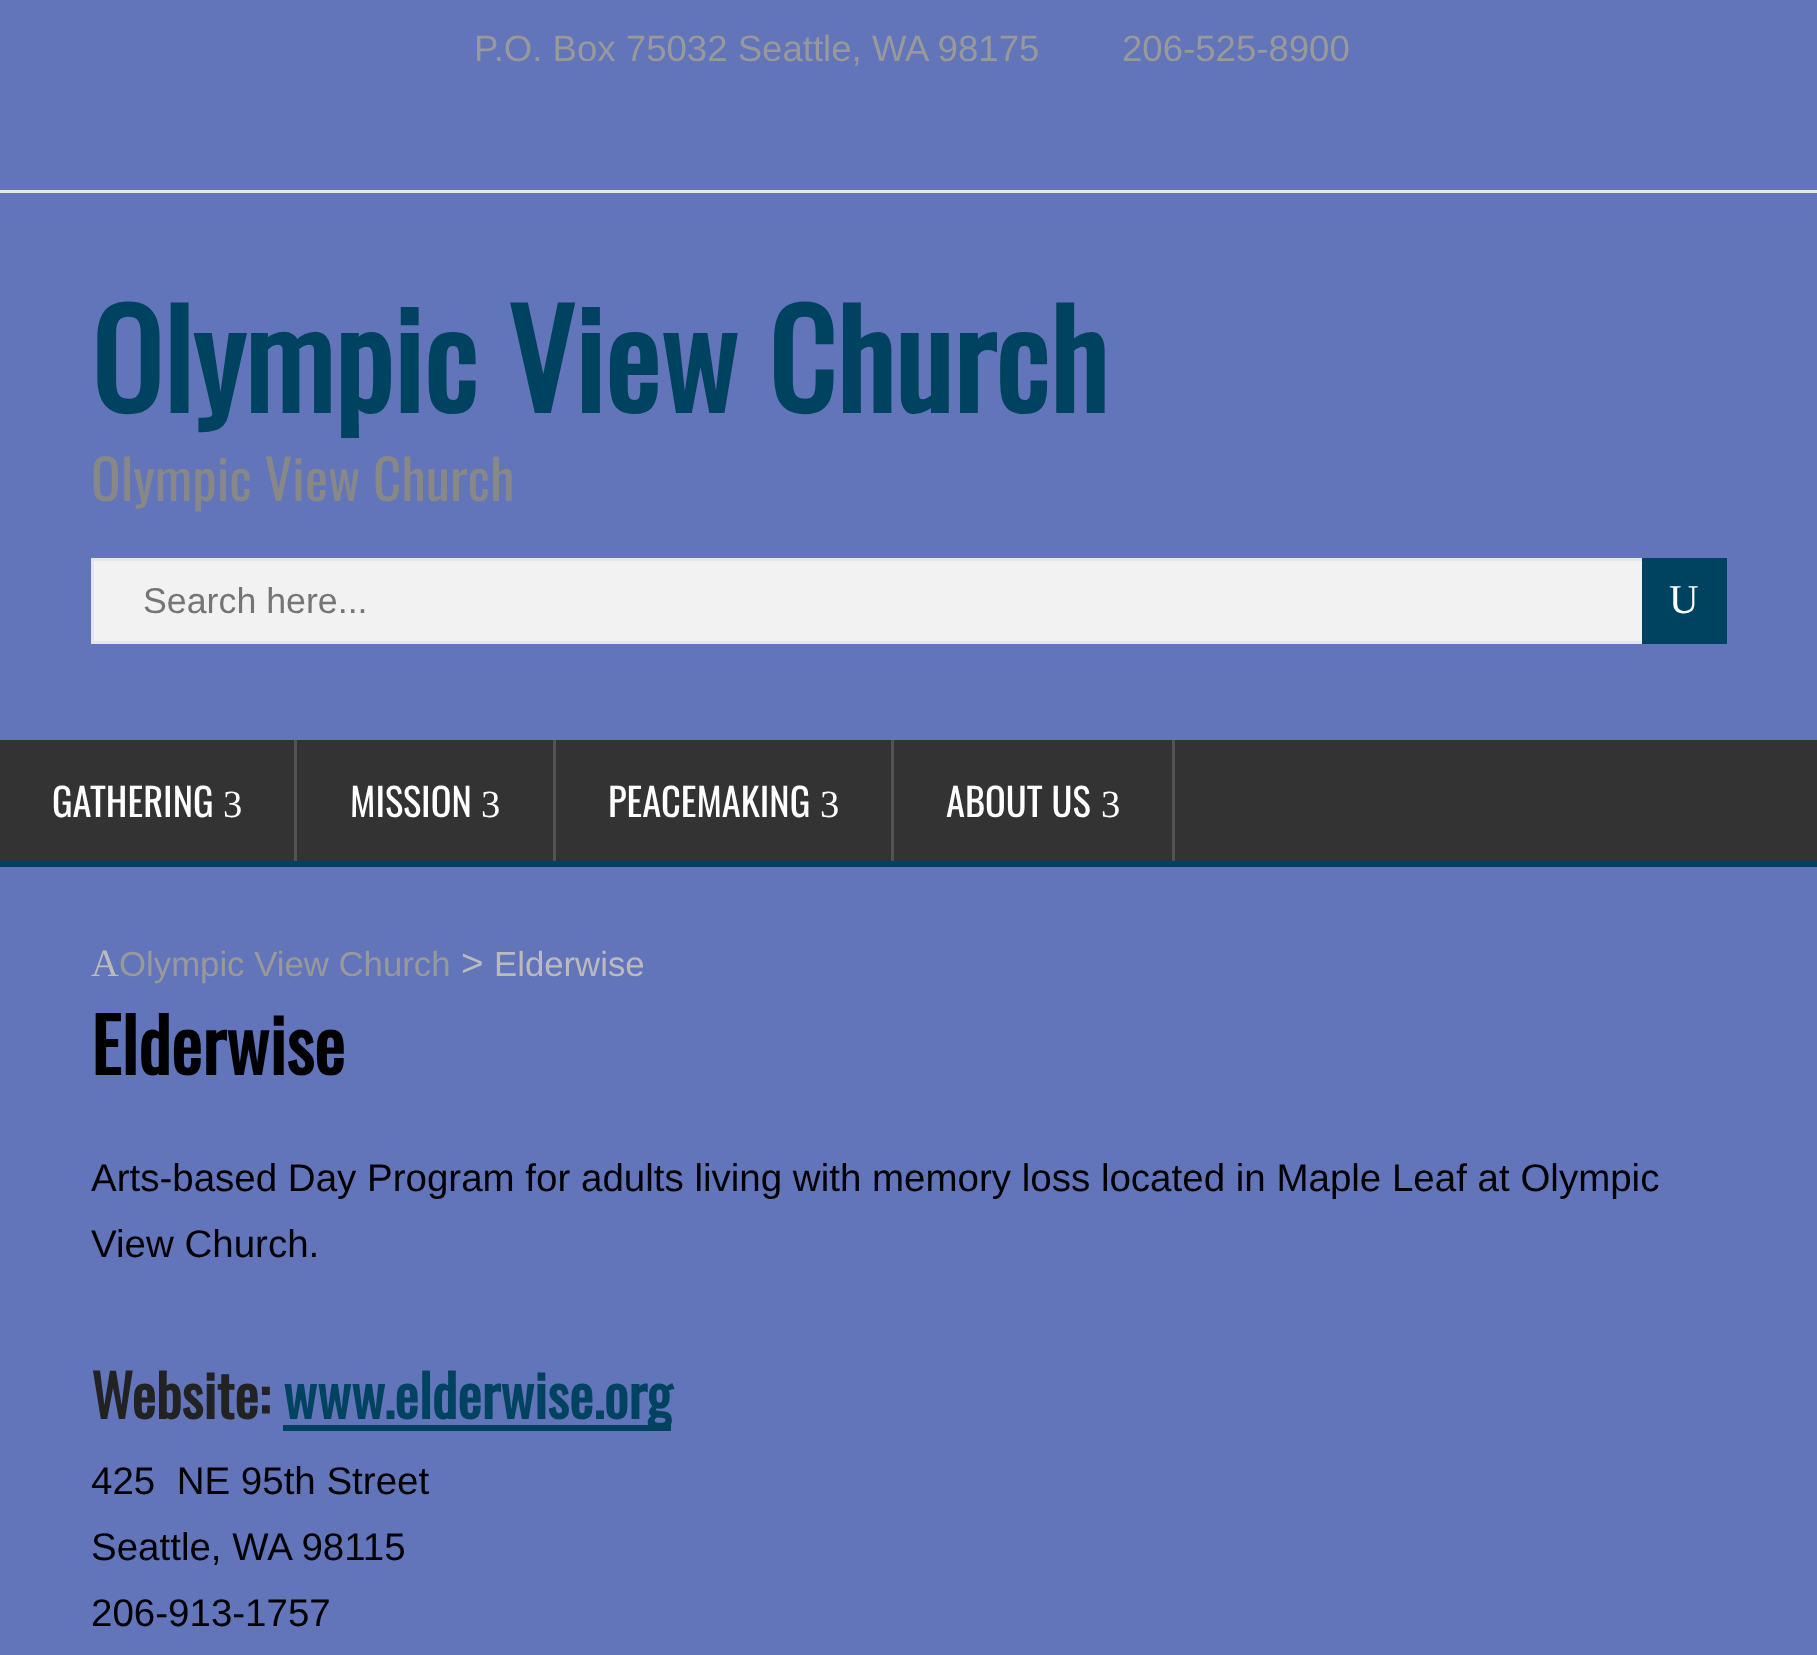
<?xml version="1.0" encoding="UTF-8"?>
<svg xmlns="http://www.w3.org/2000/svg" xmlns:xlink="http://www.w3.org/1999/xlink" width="1817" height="1655">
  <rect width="100%" height="100%" fill="#6274ba" />
  <rect y="190" width="1817" height="3" fill="#e6e6e6" />
  <rect x="94" y="561" width="1548" height="80" fill="#f2f2f2" />
  <rect x="92.5" y="559.5" width="1622" height="83" fill="none" stroke="#e6e6e6" stroke-width="3" />
  <rect x="1642" y="558" width="85" height="86" fill="#004360" />
  <rect y="740" width="1817" height="121" fill="#333333" />
  <rect y="861" width="1817" height="6" fill="#004360" />
  <rect x="294" y="740" width="3" height="121" fill="#535353" />
  <rect x="553" y="740" width="3" height="121" fill="#535353" />
  <rect x="891" y="740" width="3" height="121" fill="#535353" />
  <rect x="1172" y="740" width="3" height="121" fill="#535353" />
  <rect x="283" y="1425" width="388" height="6" fill="#004360" />
  <text x="474" y="61" style="font-family: Liberation Sans; font-size: 36.6px; fill: #999999">P.O. Box 75032 Seattle, WA 98175</text>
  <text x="1122" y="61" style="font-family: Liberation Sans; font-size: 36.6px; fill: #999999">206-525-8900</text>
  <text x="91" y="413" style="font-family: Oswald; font-size: 132px; font-weight: bold; fill: #004360">Olympic View Church</text>
  <text x="91" y="501" style="font-family: Oswald; font-size: 55px; fill: #888888">Olympic View Church</text>
  <text x="143" y="613" style="font-family: Liberation Sans; font-size: 35.75px; fill: #757575">Search here...</text>
  <text x="1669" y="613" style="font-family: Liberation Serif; font-size: 41px; fill: #ffffff">U</text>
  <text x="52" y="817" style="font-family: Oswald; font-size: 38.5px; fill: #ffffff">GATHERING</text>
  <text x="223" y="817" style="font-family: Liberation Serif; font-size: 38.5px; fill: #ffffff">3</text>
  <text x="350" y="817" style="font-family: Oswald; font-size: 38.5px; fill: #ffffff">MISSION</text>
  <text x="481" y="817" style="font-family: Liberation Serif; font-size: 38.5px; fill: #ffffff">3</text>
  <text x="608" y="817" style="font-family: Oswald; font-size: 38.5px; fill: #ffffff">PEACEMAKING</text>
  <text x="820" y="817" style="font-family: Liberation Serif; font-size: 38.5px; fill: #ffffff">3</text>
  <text x="946" y="817" style="font-family: Oswald; font-size: 38.5px; fill: #ffffff">ABOUT US</text>
  <text x="1101" y="817" style="font-family: Liberation Serif; font-size: 38.5px; fill: #ffffff">3</text>
  <text x="91" y="976" style="font-family: Liberation Serif; font-size: 38.5px; fill: #bbbbbb">A</text>
  <text x="119" y="976" style="font-family: Liberation Sans; font-size: 34.75px; fill: #999999">Olympic View Church</text>
  <text x="461" y="976" style="font-family: Liberation Sans; font-size: 38.5px; fill: #bbbbbb">&gt;</text>
  <text x="494" y="976" style="font-family: Liberation Sans; font-size: 34.75px; fill: #bbbbbb">Elderwise</text>
  <text x="91" y="1075" style="font-family: Oswald; font-size: 74px; font-weight: bold; fill: #000000">Elderwise</text>
  <text x="91" y="1191" style="font-family: Liberation Sans; font-size: 38.5px; fill: #000000">Arts-based Day Program for adults living with memory loss located in Maple Leaf at Olympic</text>
  <text x="91" y="1257" style="font-family: Liberation Sans; font-size: 38.5px; fill: #000000">View Church.</text>
  <text x="91" y="1419" style="font-family: Oswald; font-size: 57.75px; font-weight: bold; fill: #222222">Website:</text>
  <text x="283" y="1419" style="font-family: Oswald; font-size: 57.75px; font-weight: bold; fill: #004360">www.elderwise.org</text>
  <text x="91" y="1494" style="font-family: Liberation Sans; font-size: 38.5px; fill: #000000" xml:space="preserve">425  NE 95th Street</text>
  <text x="91" y="1560" style="font-family: Liberation Sans; font-size: 38.5px; fill: #000000">Seattle, WA 98115</text>
  <text x="91" y="1626" style="font-family: Liberation Sans; font-size: 38.5px; fill: #000000">206-913-1757</text>
</svg>
